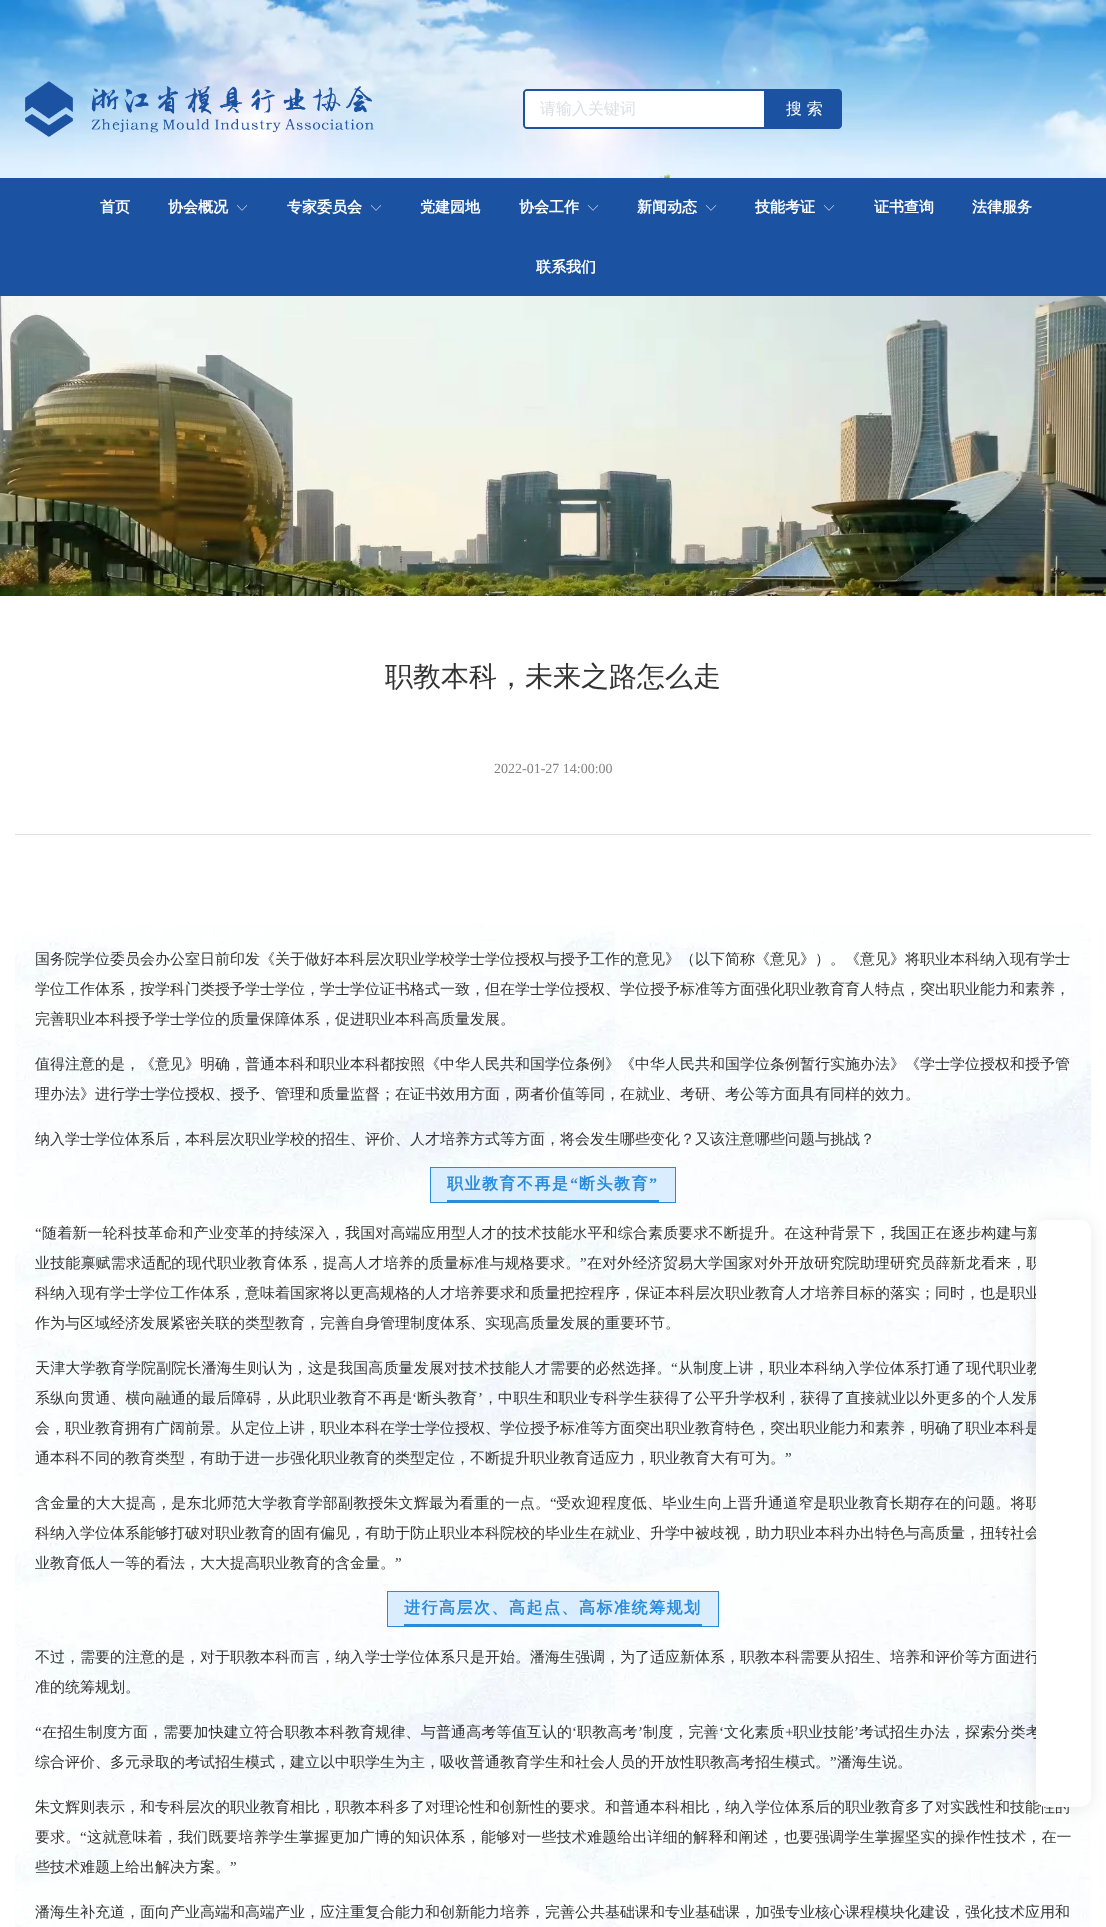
<?xml version="1.0" encoding="UTF-8"?>
<svg xmlns="http://www.w3.org/2000/svg" xmlns:xlink="http://www.w3.org/1999/xlink" width="1106" height="1927">
  <rect width="100%" height="100%" fill="#ffffff" />
  <image x="0" y="0" width="1106" height="178" xlink:href="image1.png" />
  <image x="25" y="81" width="349" height="56" xlink:href="image2.png" />
  <path d="M 527 90 h 238 v 38 h -238 c -1.5 0 -3 -1.5 -3 -3 v -32 c 0 -1.5 1.5 -3 3 -3 z" fill="none" stroke="#1b52a1" stroke-width="2" />
  <path d="M 527 91 h 237 v 36 h -237 c -1 0 -2 -1 -2 -2 v -32 c 0 -1 1 -2 2 -2 z" fill="#ffffff" />
  <path d="M 766 89 h 72 c 2 0 4 2 4 4 v 32 c 0 2 -2 4 -4 4 h -72 z" fill="#1b52a1" />
  <rect y="178" width="1106" height="118" fill="#1b52a1" />
  <image x="236" y="205" width="12" height="6" xlink:href="image3.png" />
  <image x="370" y="205" width="12" height="6" xlink:href="image3.png" />
  <image x="587" y="205" width="12" height="6" xlink:href="image3.png" />
  <image x="705" y="205" width="12" height="6" xlink:href="image3.png" />
  <image x="823" y="205" width="12" height="6" xlink:href="image3.png" />
  <image x="0" y="296" width="1106" height="300" xlink:href="image4.png" />
  <rect x="15" y="834" width="1076" height="1" fill="#e1e1e1" />
  <image x="15" y="925" width="1076" height="1002" xlink:href="image5.png" />
  <rect x="430.5" y="1167.5" width="245" height="35" fill="#d9edff" stroke="#288bdc" />
  <rect x="447" y="1200" width="212" height="2" fill="#288bdc" />
  <rect x="387.5" y="1591.5" width="331" height="35" fill="#d9edff" stroke="#288bdc" />
  <rect x="404" y="1624" width="298" height="2" fill="#288bdc" />
  <rect x="1036" y="1222" width="55" height="587" rx="10" fill="#1e2730" fill-opacity="0.1" filter="blur(8px)" />
  <text x="540" y="114" style="font-family: WenQuanYi Zen Hei; font-size: 16px; font-weight: 500; fill: #dcdfe6">请输入关键词</text>
  <text x="786" y="114" style="font-family: WenQuanYi Zen Hei; font-size: 16px; font-weight: 500; fill: #ffffff">搜 索</text>
  <text x="100" y="212" style="font-family: WenQuanYi Zen Hei; font-size: 15px; font-weight: bold; fill: #ffffff">首页</text>
  <text x="168" y="212" style="font-family: WenQuanYi Zen Hei; font-size: 15px; font-weight: bold; fill: #ffffff">协会概况</text>
  <text x="287" y="212" style="font-family: WenQuanYi Zen Hei; font-size: 15px; font-weight: bold; fill: #ffffff">专家委员会</text>
  <text x="420" y="212" style="font-family: WenQuanYi Zen Hei; font-size: 15px; font-weight: bold; fill: #ffffff">党建园地</text>
  <text x="519" y="212" style="font-family: WenQuanYi Zen Hei; font-size: 15px; font-weight: bold; fill: #ffffff">协会工作</text>
  <text x="637" y="212" style="font-family: WenQuanYi Zen Hei; font-size: 15px; font-weight: bold; fill: #ffffff">新闻动态</text>
  <text x="755" y="212" style="font-family: WenQuanYi Zen Hei; font-size: 15px; font-weight: bold; fill: #ffffff">技能考证</text>
  <text x="874" y="212" style="font-family: WenQuanYi Zen Hei; font-size: 15px; font-weight: bold; fill: #ffffff">证书查询</text>
  <text x="972" y="212" style="font-family: WenQuanYi Zen Hei; font-size: 15px; font-weight: bold; fill: #ffffff">法律服务</text>
  <text x="536" y="272" style="font-family: WenQuanYi Zen Hei; font-size: 15px; font-weight: bold; fill: #ffffff">联系我们</text>
  <text x="385" y="686" style="font-family: WenQuanYi Zen Hei; font-size: 28px; font-weight: 500; fill: #333333">职教本科，未来之路怎么走</text>
  <text x="494" y="773" style="font-family: Liberation Serif; font-size: 14px; fill: #828282">2022-01-27 14:00:00</text>
  <text x="35" y="964" style="font-family: WenQuanYi Zen Hei; font-size: 15px; font-weight: 500; fill: #333333">国务院学位委员会办公室日前印发《关于做好本科层次职业学校学士学位授权与授予工作的意见》（以下简称《意见》）。《意见》将职业本科纳入现有学士</text>
  <text x="35" y="994" style="font-family: WenQuanYi Zen Hei; font-size: 15px; font-weight: 500; fill: #333333">学位工作体系，按学科门类授予学士学位，学士学位证书格式一致，但在学士学位授权、学位授予标准等方面强化职业教育育人特点，突出职业能力和素养，</text>
  <text x="35" y="1024" style="font-family: WenQuanYi Zen Hei; font-size: 15px; font-weight: 500; fill: #333333">完善职业本科授予学士学位的质量保障体系，促进职业本科高质量发展。</text>
  <text x="35" y="1069" style="font-family: WenQuanYi Zen Hei; font-size: 15px; font-weight: 500; fill: #333333">值得注意的是，《意见》明确，普通本科和职业本科都按照《中华人民共和国学位条例》《中华人民共和国学位条例暂行实施办法》《学士学位授权和授予管</text>
  <text x="35" y="1099" style="font-family: WenQuanYi Zen Hei; font-size: 15px; font-weight: 500; fill: #333333">理办法》进行学士学位授权、授予、管理和质量监督；在证书效用方面，两者价值等同，在就业、考研、考公等方面具有同样的效力。</text>
  <text x="35" y="1144" style="font-family: WenQuanYi Zen Hei; font-size: 15px; font-weight: 500; fill: #333333">纳入学士学位体系后，本科层次职业学校的招生、评价、人才培养方式等方面，将会发生哪些变化？又该注意哪些问题与挑战？</text>
  <text x="447" y="1189" style="font-family: WenQuanYi Zen Hei; font-size: 16px; font-weight: bold; letter-spacing: 1.5px; fill: #288bdc">职业教育不再是</text>
  <text x="570" y="1189" style="font-family: Liberation Serif; font-size: 16px; font-weight: bold; letter-spacing: 1.5px; fill: #288bdc">“</text>
  <text x="579" y="1189" style="font-family: WenQuanYi Zen Hei; font-size: 16px; font-weight: bold; letter-spacing: 1.5px; fill: #288bdc">断头教育</text>
  <text x="649" y="1189" style="font-family: Liberation Serif; font-size: 16px; font-weight: bold; letter-spacing: 1.5px; fill: #288bdc">”</text>
  <text x="35" y="1238" style="font-family: Liberation Serif; font-size: 15px; letter-spacing: 0.15px; fill: #333333">“</text>
  <text x="42" y="1238" style="font-family: WenQuanYi Zen Hei; font-size: 15px; font-weight: 500; letter-spacing: 0.15px; fill: #333333">随着新一轮科技革命和产业变革的持续深入，我国对高端应用型人才的技术技能水平和综合素质要求不断提升。在这种背景下，我国正在逐步构建与新</text>
  <text x="35" y="1268" style="font-family: WenQuanYi Zen Hei; font-size: 15px; font-weight: 500; letter-spacing: 0.15px; fill: #333333">业技能禀赋需求适配的现代职业教育体系，提高人才培养的质量标准与规格要求。</text>
  <text x="580" y="1268" style="font-family: Liberation Serif; font-size: 15px; letter-spacing: 0.15px; fill: #333333">”</text>
  <text x="587" y="1268" style="font-family: WenQuanYi Zen Hei; font-size: 15px; font-weight: 500; letter-spacing: 0.15px; fill: #333333">在对外经济贸易大学国家对外开放研究院助理研究员薛新龙看来，职</text>
  <text x="35" y="1298" style="font-family: WenQuanYi Zen Hei; font-size: 15px; font-weight: 500; fill: #333333">科纳入现有学士学位工作体系，意味着国家将以更高规格的人才培养要求和质量把控程序，保证本科层次职业教育人才培养目标的落实；同时，也是职业</text>
  <text x="35" y="1328" style="font-family: WenQuanYi Zen Hei; font-size: 15px; font-weight: 500; fill: #333333">作为与区域经济发展紧密关联的类型教育，完善自身管理制度体系、实现高质量发展的重要环节。</text>
  <text x="35" y="1373" style="font-family: WenQuanYi Zen Hei; font-size: 15px; font-weight: 500; letter-spacing: 0.15px; fill: #333333">天津大学教育学院副院长潘海生则认为，这是我国高质量发展对技术技能人才需要的必然选择。</text>
  <text x="671" y="1373" style="font-family: Liberation Serif; font-size: 15px; letter-spacing: 0.15px; fill: #333333">“</text>
  <text x="678" y="1373" style="font-family: WenQuanYi Zen Hei; font-size: 15px; font-weight: 500; letter-spacing: 0.15px; fill: #333333">从制度上讲，职业本科纳入学位体系打通了现代职业教</text>
  <text x="35" y="1403" style="font-family: WenQuanYi Zen Hei; font-size: 15px; font-weight: 500; letter-spacing: 0.1px; fill: #333333">系纵向贯通、横向融通的最后障碍，从此职业教育不再是</text>
  <text x="412" y="1403" style="font-family: Liberation Serif; font-size: 15px; letter-spacing: 0.1px; fill: #333333">‘</text>
  <text x="417" y="1403" style="font-family: WenQuanYi Zen Hei; font-size: 15px; font-weight: 500; letter-spacing: 0.1px; fill: #333333">断头教育</text>
  <text x="478" y="1403" style="font-family: Liberation Serif; font-size: 15px; letter-spacing: 0.1px; fill: #333333">’</text>
  <text x="483" y="1403" style="font-family: WenQuanYi Zen Hei; font-size: 15px; font-weight: 500; letter-spacing: 0.1px; fill: #333333">，中职生和职业专科学生获得了公平升学权利，获得了直接就业以外更多的个人发展</text>
  <text x="35" y="1433" style="font-family: WenQuanYi Zen Hei; font-size: 15px; font-weight: 500; fill: #333333">会，职业教育拥有广阔前景。从定位上讲，职业本科在学士学位授权、学位授予标准等方面突出职业教育特色，突出职业能力和素养，明确了职业本科是</text>
  <text x="35" y="1463" style="font-family: WenQuanYi Zen Hei; font-size: 15px; font-weight: 500; fill: #333333">通本科不同的教育类型，有助于进一步强化职业教育的类型定位，不断提升职业教育适应力，职业教育大有可为。</text>
  <text x="785" y="1463" style="font-family: Liberation Serif; font-size: 15px; fill: #333333">”</text>
  <text x="35" y="1508" style="font-family: WenQuanYi Zen Hei; font-size: 15px; font-weight: 500; letter-spacing: 0.15px; fill: #333333">含金量的大大提高，是东北师范大学教育学部副教授朱文辉最为看重的一点。</text>
  <text x="550" y="1508" style="font-family: Liberation Serif; font-size: 15px; letter-spacing: 0.15px; fill: #333333">“</text>
  <text x="556" y="1508" style="font-family: WenQuanYi Zen Hei; font-size: 15px; font-weight: 500; letter-spacing: 0.15px; fill: #333333">受欢迎程度低、毕业生向上晋升通道窄是职业教育长期存在的问题。将职</text>
  <text x="35" y="1538" style="font-family: WenQuanYi Zen Hei; font-size: 15px; font-weight: 500; fill: #333333">科纳入学位体系能够打破对职业教育的固有偏见，有助于防止职业本科院校的毕业生在就业、升学中被歧视，助力职业本科办出特色与高质量，扭转社会</text>
  <text x="35" y="1568" style="font-family: WenQuanYi Zen Hei; font-size: 15px; font-weight: 500; fill: #333333">业教育低人一等的看法，大大提高职业教育的含金量。</text>
  <text x="395" y="1568" style="font-family: Liberation Serif; font-size: 15px; fill: #333333">”</text>
  <text x="404" y="1613" style="font-family: WenQuanYi Zen Hei; font-size: 16px; font-weight: bold; letter-spacing: 1.5px; fill: #288bdc">进行高层次、高起点、高标准统筹规划</text>
  <text x="35" y="1662" style="font-family: WenQuanYi Zen Hei; font-size: 15px; font-weight: 500; fill: #333333">不过，需要的注意的是，对于职教本科而言，纳入学士学位体系只是开始。潘海生强调，为了适应新体系，职教本科需要从招生、培养和评价等方面进行</text>
  <text x="35" y="1692" style="font-family: WenQuanYi Zen Hei; font-size: 15px; font-weight: 500; fill: #333333">准的统筹规划。</text>
  <text x="35" y="1737" style="font-family: Liberation Serif; font-size: 15px; letter-spacing: 0.15px; fill: #333333">“</text>
  <text x="42" y="1737" style="font-family: WenQuanYi Zen Hei; font-size: 15px; font-weight: 500; letter-spacing: 0.15px; fill: #333333">在招生制度方面，需要加快建立符合职教本科教育规律、与普通高考等值互认的</text>
  <text x="572" y="1737" style="font-family: Liberation Serif; font-size: 15px; letter-spacing: 0.15px; fill: #333333">‘</text>
  <text x="577" y="1737" style="font-family: WenQuanYi Zen Hei; font-size: 15px; font-weight: 500; letter-spacing: 0.15px; fill: #333333">职教高考</text>
  <text x="638" y="1737" style="font-family: Liberation Serif; font-size: 15px; letter-spacing: 0.15px; fill: #333333">’</text>
  <text x="643" y="1737" style="font-family: WenQuanYi Zen Hei; font-size: 15px; font-weight: 500; letter-spacing: 0.15px; fill: #333333">制度，完善</text>
  <text x="719" y="1737" style="font-family: Liberation Serif; font-size: 15px; letter-spacing: 0.15px; fill: #333333">‘</text>
  <text x="724" y="1737" style="font-family: WenQuanYi Zen Hei; font-size: 15px; font-weight: 500; letter-spacing: 0.15px; fill: #333333">文化素质</text>
  <text x="785" y="1737" style="font-family: Liberation Serif; font-size: 15px; letter-spacing: 0.15px; fill: #333333">+</text>
  <text x="793" y="1737" style="font-family: WenQuanYi Zen Hei; font-size: 15px; font-weight: 500; letter-spacing: 0.15px; fill: #333333">职业技能</text>
  <text x="854" y="1737" style="font-family: Liberation Serif; font-size: 15px; letter-spacing: 0.15px; fill: #333333">’</text>
  <text x="859" y="1737" style="font-family: WenQuanYi Zen Hei; font-size: 15px; font-weight: 500; letter-spacing: 0.15px; fill: #333333">考试招生办法，探索分类考</text>
  <text x="35" y="1767" style="font-family: WenQuanYi Zen Hei; font-size: 15px; font-weight: 500; fill: #333333">综合评价、多元录取的考试招生模式，建立以中职学生为主，吸收普通教育学生和社会人员的开放性职教高考招生模式。</text>
  <text x="830" y="1767" style="font-family: Liberation Serif; font-size: 15px; fill: #333333">”</text>
  <text x="837" y="1767" style="font-family: WenQuanYi Zen Hei; font-size: 15px; font-weight: 500; fill: #333333">潘海生说。</text>
  <text x="35" y="1812" style="font-family: WenQuanYi Zen Hei; font-size: 15px; font-weight: 500; fill: #333333">朱文辉则表示，和专科层次的职业教育相比，职教本科多了对理论性和创新性的要求。和普通本科相比，纳入学位体系后的职业教育多了对实践性和技能性的</text>
  <text x="35" y="1842" style="font-family: WenQuanYi Zen Hei; font-size: 15px; font-weight: 500; letter-spacing: 0.15px; fill: #333333">要求。</text>
  <text x="80" y="1842" style="font-family: Liberation Serif; font-size: 15px; letter-spacing: 0.15px; fill: #333333">“</text>
  <text x="87" y="1842" style="font-family: WenQuanYi Zen Hei; font-size: 15px; font-weight: 500; letter-spacing: 0.15px; fill: #333333">这就意味着，我们既要培养学生掌握更加广博的知识体系，能够对一些技术难题给出详细的解释和阐述，也要强调学生掌握坚实的操作性技术，在一</text>
  <text x="35" y="1872" style="font-family: WenQuanYi Zen Hei; font-size: 15px; font-weight: 500; fill: #333333">些技术难题上给出解决方案。</text>
  <text x="230" y="1872" style="font-family: Liberation Serif; font-size: 15px; fill: #333333">”</text>
  <text x="35" y="1917" style="font-family: WenQuanYi Zen Hei; font-size: 15px; font-weight: 500; fill: #333333">潘海生补充道，面向产业高端和高端产业，应注重复合能力和创新能力培养，完善公共基础课和专业基础课，加强专业核心课程模块化建设，强化技术应用和</text>
  <rect x="1036" y="1220" width="55" height="587" rx="10" fill="#ffffff" />
</svg>
